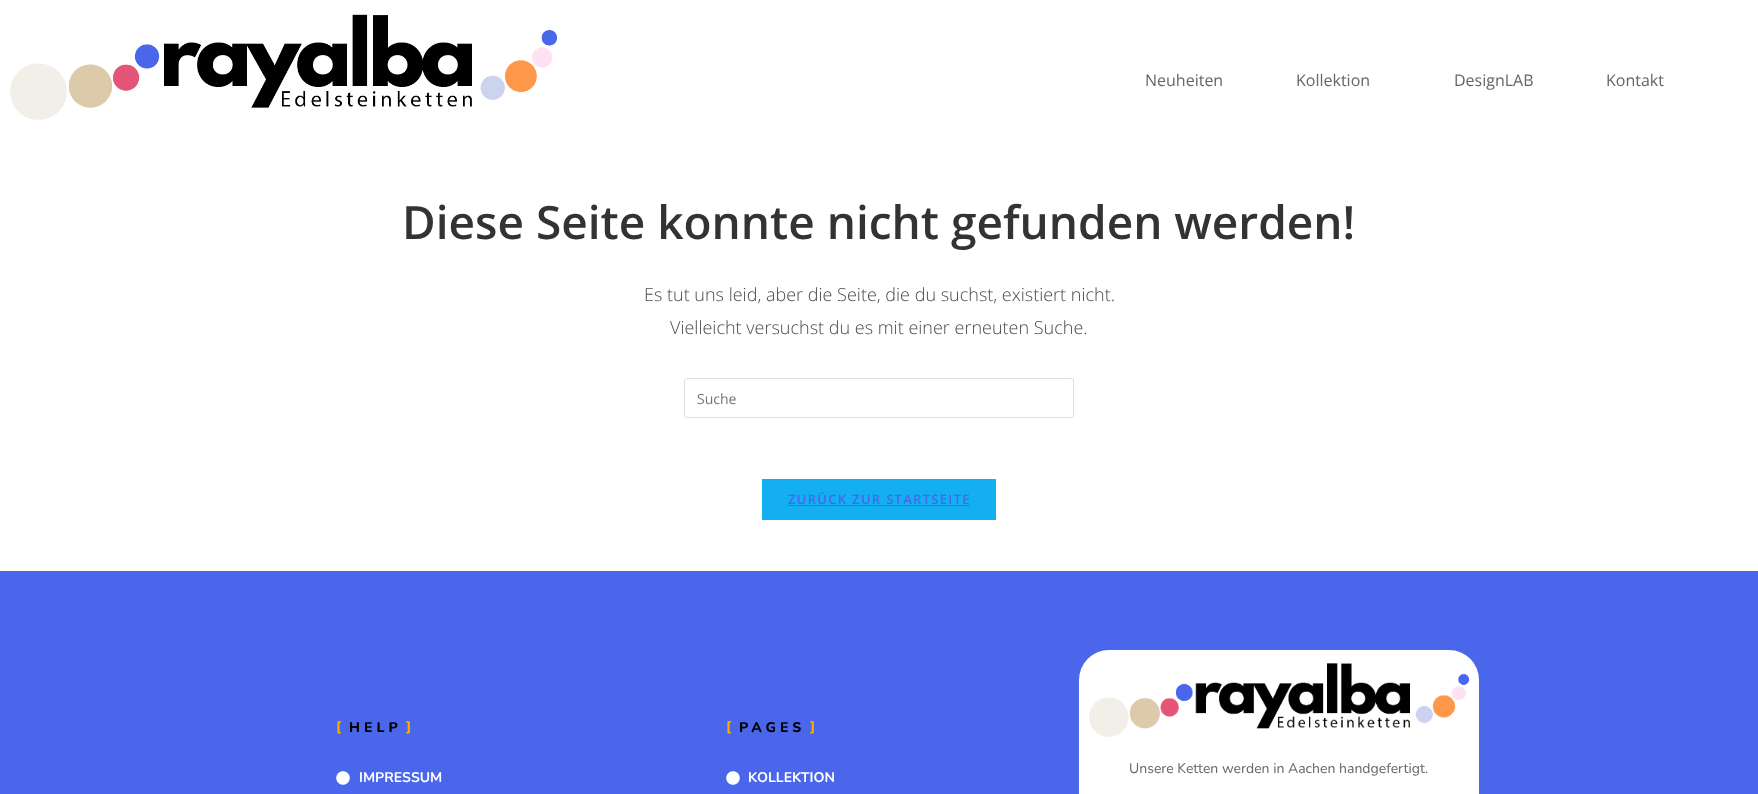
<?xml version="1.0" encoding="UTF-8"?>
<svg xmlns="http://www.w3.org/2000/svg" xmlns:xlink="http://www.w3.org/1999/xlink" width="1758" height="794">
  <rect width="100%" height="100%" fill="#ffffff" />
  <image x="10" y="14" width="547" height="106" xlink:href="image1.png" />
  <rect x="684.5" y="378.5" width="389" height="39" rx="2.5" fill="none" stroke="#dddddd" />
  <rect x="762" y="479" width="234" height="41" fill="#13aff0" />
  <rect x="788" y="505" width="182" height="1" fill="#4a66eb" />
  <rect y="571" width="1758" height="223" fill="#4a66eb" />
  <image x="336" y="771" width="14" height="14" xlink:href="image2.png" />
  <image x="726" y="771" width="14" height="14" xlink:href="image2.png" />
  <rect x="1079" y="650" width="400" height="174" rx="30" fill="#ffffff" />
  <image x="1089" y="663" width="380" height="74" xlink:href="image3.png" />
  <text x="1145" y="86" style="font-family: Open Sans; font-size: 16px; fill: #666666">Neuheiten</text>
  <text x="1296" y="86" style="font-family: Open Sans; font-size: 16px; fill: #666666">Kollektion</text>
  <text x="1454" y="86" style="font-family: Open Sans; font-size: 16px; fill: #666666">DesignLAB</text>
  <text x="1606" y="86" style="font-family: Open Sans; font-size: 16px; fill: #666666">Kontakt</text>
  <text x="402" y="239" style="font-family: Open Sans; font-size: 46px; font-weight: 600; fill: #333333">Diese Seite konnte nicht gefunden werden!</text>
  <text x="644" y="301" style="font-family: Open Sans; font-size: 18px; font-weight: 300; fill: #4a4a4a">Es tut uns leid, aber die Seite, die du suchst, existiert nicht.</text>
  <text x="670" y="334" style="font-family: Open Sans; font-size: 18px; font-weight: 300; fill: #4a4a4a">Vielleicht versuchst du es mit einer erneuten Suche.</text>
  <text x="697" y="404" style="font-family: Open Sans; font-size: 14px; fill: #757575">Suche</text>
  <text x="788" y="504" style="font-family: Open Sans; font-size: 13px; font-weight: 600; letter-spacing: 1.3px; fill: #4a66eb">ZURÜCK ZUR STARTSEITE</text>
  <text x="336" y="731" style="font-family: Nunito; font-size: 14px; font-weight: 800; letter-spacing: 4px; fill: #ffab00">[</text>
  <text x="349" y="732" style="font-family: Nunito; font-size: 14px; font-weight: 800; letter-spacing: 4px; fill: #000000">HELP</text>
  <text x="406" y="731" style="font-family: Nunito; font-size: 14px; font-weight: 800; letter-spacing: 4px; fill: #ffab00">]</text>
  <text x="359" y="782" style="font-family: Nunito; font-size: 14px; font-weight: bold; fill: #ffffff">IMPRESSUM</text>
  <text x="726" y="731" style="font-family: Nunito; font-size: 14px; font-weight: 800; letter-spacing: 4px; fill: #ffab00">[</text>
  <text x="739" y="732" style="font-family: Nunito; font-size: 14px; font-weight: 800; letter-spacing: 4px; fill: #000000">PAGES</text>
  <text x="810" y="731" style="font-family: Nunito; font-size: 14px; font-weight: 800; letter-spacing: 4px; fill: #ffab00">]</text>
  <text x="748" y="782" style="font-family: Nunito; font-size: 14px; font-weight: bold; fill: #ffffff">KOLLEKTION</text>
  <text x="1129" y="773" style="font-family: Nunito; font-size: 14px; fill: #666666">Unsere Ketten werden in Aachen handgefertigt.</text>
</svg>
